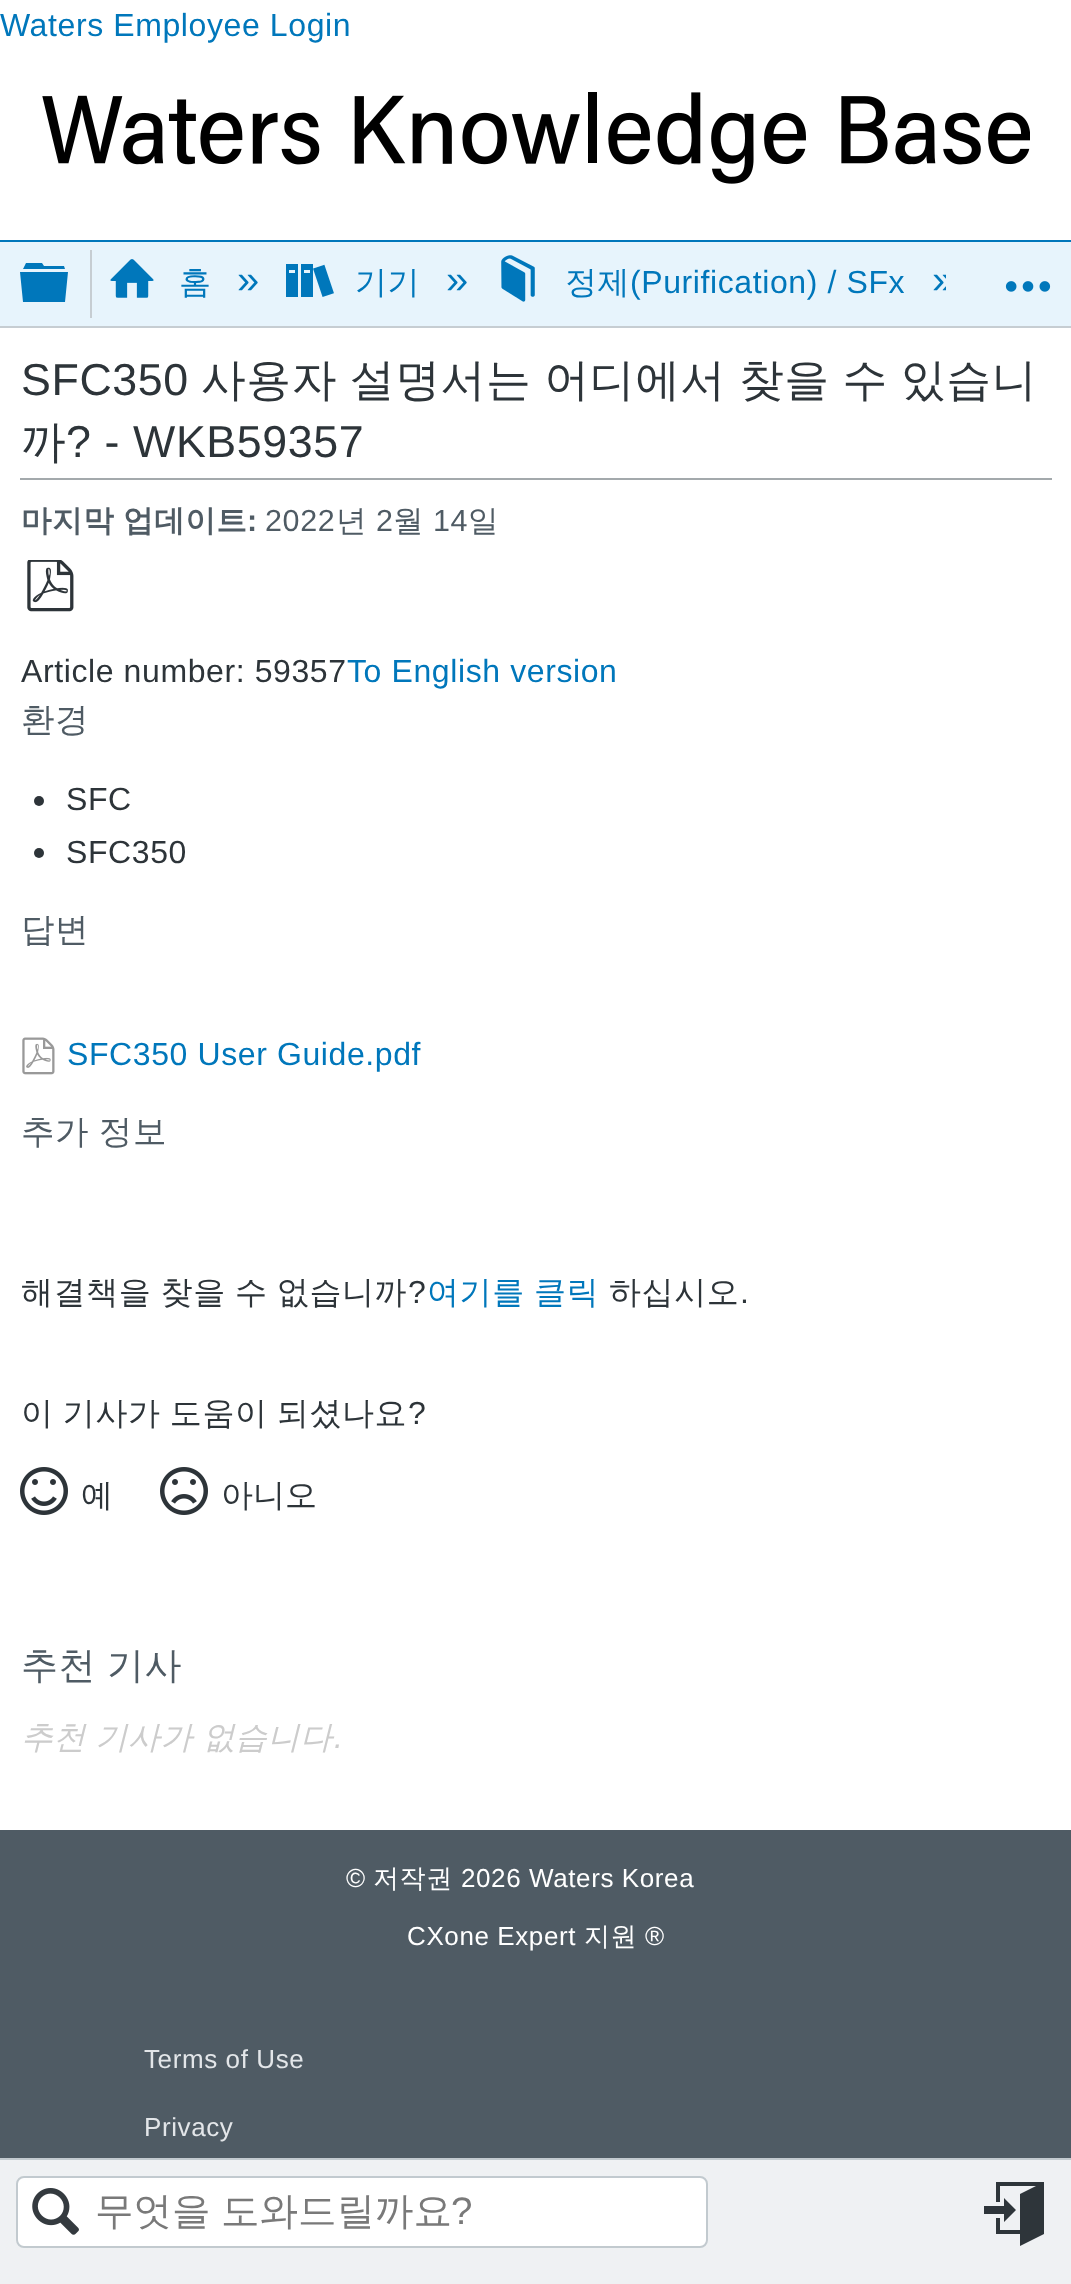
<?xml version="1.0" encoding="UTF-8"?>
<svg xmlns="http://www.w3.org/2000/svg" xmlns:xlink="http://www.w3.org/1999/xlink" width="1071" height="2284">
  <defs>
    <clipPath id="clip1"><rect x="92" y="250" width="854" height="68" /></clipPath>
  </defs>
  <rect width="100%" height="100%" fill="#ffffff" />
  <image x="42" y="92" width="988" height="92" xlink:href="image1.png" />
  <rect y="242" width="1071" height="84" fill="#e7f4fc" />
  <rect y="240" width="1071" height="2" fill="#0077bb" />
  <rect y="326" width="1071" height="2" fill="#c6cdd2" />
  <path d="M 20 272 h 48 l -3 30 h -42 z m 44 -6 l 1 3 h -42 l 3 -6 h 16 l 2 3 z" fill="#0077bb" />
  <rect x="90" y="250" width="2" height="68" fill="#c6cdd2" />
  <image x="110" y="259" width="44" height="39" xlink:href="image2.png" />
  <image x="286" y="264" width="48" height="33" xlink:href="image3.png" />
  <image x="501" y="255" width="34" height="47" xlink:href="image4.png" />
  <image x="1005" y="281" width="46" height="11" xlink:href="image5.png" />
  <rect y="2158" width="1071" height="2" fill="#c2cacf" />
  <rect y="2160" width="1071" height="124" fill="#eff1f3" />
  <rect x="17" y="2177" width="690" height="70" rx="7" fill="#ffffff" fill-opacity="0.97" stroke="#c2cacf" stroke-width="2" />
  <image x="32" y="2188" width="47" height="47" xlink:href="image6.png" />
  <path d="M 1004 2214 h -20 v -8 h 20 v -8 l 12 12 l -12 12 z m 40 -32 v 52 l -24 12 v -12 h -24 v -16 h 4 v 12 h 20 v -36 l 16 -8 h -36 v 16 h -4 v -20 z" fill="#2e353a" />
  <rect x="20" y="478" width="1032" height="2" fill="#a3a9ac" />
  <image x="27" y="560" width="47" height="52" xlink:href="image7.png" />
  <circle cx="39" cy="801" r="5" fill="#2d3439" />
  <circle cx="39" cy="853" r="5" fill="#2d3439" />
  <image x="22" y="1037" width="33" height="38" xlink:href="image8.png" />
  <image x="20" y="1467" width="48" height="48" xlink:href="image9.png" />
  <image x="160" y="1467" width="48" height="48" xlink:href="image10.png" />
  <rect y="1830" width="1071" height="328" fill="#4f5b64" />
  <text x="0" y="36" style="font-family: Liberation Sans; font-size: 32px; letter-spacing: 0.6px; fill: #0077bb">Waters Employee Login</text>
  <text x="179" y="293" style="font-family: WenQuanYi Zen Hei; font-size: 32px; font-weight: 500; letter-spacing: 0.6px; fill: #0077bb">홈</text>
  <text x="237" y="293" style="font-family: Liberation Sans; font-size: 40px; letter-spacing: 0.6px; fill: #0077bb">»</text>
  <text x="355" y="293" style="font-family: WenQuanYi Zen Hei; font-size: 32px; font-weight: 500; letter-spacing: 0.6px; fill: #0077bb">기기</text>
  <text x="446" y="293" style="font-family: Liberation Sans; font-size: 40px; letter-spacing: 0.6px; fill: #0077bb">»</text>
  <text x="565" y="293" style="font-family: WenQuanYi Zen Hei; font-size: 32px; font-weight: 500; letter-spacing: 0.6px; fill: #0077bb">정제</text>
  <text x="630" y="293" style="font-family: Liberation Sans; font-size: 32px; letter-spacing: 0.6px; fill: #0077bb">(Purification) / SFx</text>
  <g clip-path="url(#clip1)">
    <text x="932" y="293" style="font-family: Liberation Sans; font-size: 40px; letter-spacing: 0.6px; fill: #0077bb">»</text>
  </g>
  <text x="95" y="2224" word-spacing="-1" style="font-family: WenQuanYi Zen Hei; font-size: 38.5px; font-weight: 500; fill: #797979">무엇을 도와드릴까요</text>
  <text x="451" y="2224" style="font-family: Liberation Sans; font-size: 38.5px; fill: #797979">?</text>
  <text x="21" y="395" style="font-family: Liberation Sans; font-size: 44.75px; letter-spacing: 0.6px; fill: #2d3439">SFC350</text>
  <text x="201" y="395" word-spacing="-1" style="font-family: WenQuanYi Zen Hei; font-size: 44.75px; font-weight: 500; letter-spacing: 0.6px; fill: #2d3439">사용자 설명서는 어디에서 찾을 수 있습니</text>
  <text x="21" y="457" style="font-family: WenQuanYi Zen Hei; font-size: 44.75px; font-weight: 500; letter-spacing: 0.6px; fill: #2d3439">까</text>
  <text x="66" y="457" style="font-family: Liberation Sans; font-size: 44.75px; letter-spacing: 0.6px; fill: #2d3439">? - WKB59357</text>
  <text x="21" y="531" word-spacing="-1" style="font-family: WenQuanYi Zen Hei; font-size: 30.5px; font-weight: bold; letter-spacing: 0.6px; fill: #4f5b64">마지막 업데이트</text>
  <text x="247" y="531" style="font-family: Liberation Sans; font-size: 30.5px; font-weight: bold; letter-spacing: 0.6px; fill: #4f5b64">:</text>
  <text x="265" y="531" style="font-family: Liberation Sans; font-size: 30.5px; letter-spacing: 0.6px; fill: #4f5b64">2022</text>
  <text x="336" y="531" style="font-family: WenQuanYi Zen Hei; font-size: 30.5px; font-weight: 500; letter-spacing: 0.6px; fill: #4f5b64">년</text>
  <text x="376" y="531" style="font-family: Liberation Sans; font-size: 30.5px; letter-spacing: 0.6px; fill: #4f5b64">2</text>
  <text x="393" y="531" style="font-family: WenQuanYi Zen Hei; font-size: 30.5px; font-weight: 500; letter-spacing: 0.6px; fill: #4f5b64">월</text>
  <text x="433" y="531" style="font-family: Liberation Sans; font-size: 30.5px; letter-spacing: 0.6px; fill: #4f5b64">14</text>
  <text x="468" y="531" style="font-family: WenQuanYi Zen Hei; font-size: 30.5px; font-weight: 500; letter-spacing: 0.6px; fill: #4f5b64">일</text>
  <text x="21" y="682" style="font-family: Liberation Sans; font-size: 32px; letter-spacing: 0.6px; fill: #2d3439">Article number: 59357</text>
  <text x="347" y="682" style="font-family: Liberation Sans; font-size: 32px; letter-spacing: 0.6px; fill: #0077bb">To English version</text>
  <text x="21" y="731" style="font-family: WenQuanYi Zen Hei; font-size: 33.5px; font-weight: 500; letter-spacing: 0.6px; fill: #4f5b64">환경</text>
  <text x="66" y="810" style="font-family: Liberation Sans; font-size: 32px; letter-spacing: 0.6px; fill: #2d3439">SFC</text>
  <text x="66" y="863" style="font-family: Liberation Sans; font-size: 32px; letter-spacing: 0.6px; fill: #2d3439">SFC350</text>
  <text x="21" y="941" style="font-family: WenQuanYi Zen Hei; font-size: 33.5px; font-weight: 500; letter-spacing: 0.6px; fill: #4f5b64">답변</text>
  <text x="67" y="1065" style="font-family: Liberation Sans; font-size: 32px; letter-spacing: 0.6px; fill: #0077bb">SFC350 User Guide.pdf</text>
  <text x="21" y="1143" word-spacing="-1" style="font-family: WenQuanYi Zen Hei; font-size: 33.5px; font-weight: 500; letter-spacing: 0.6px; fill: #4f5b64">추가 정보</text>
  <text x="21" y="1303" word-spacing="-1" style="font-family: WenQuanYi Zen Hei; font-size: 32px; font-weight: 500; letter-spacing: 0.6px; fill: #2d3439">해결책을 찾을 수 없습니까</text>
  <text x="408" y="1303" style="font-family: Liberation Sans; font-size: 32px; letter-spacing: 0.6px; fill: #2d3439">?</text>
  <text x="427" y="1303" word-spacing="-1" style="font-family: WenQuanYi Zen Hei; font-size: 32px; font-weight: 500; letter-spacing: 0.6px; fill: #0077bb">여기를 클릭</text>
  <text x="609" y="1303" style="font-family: WenQuanYi Zen Hei; font-size: 32px; font-weight: 500; letter-spacing: 0.6px; fill: #2d3439">하십시오</text>
  <text x="740" y="1303" style="font-family: Liberation Sans; font-size: 32px; letter-spacing: 0.6px; fill: #2d3439">.</text>
  <text x="21" y="1424" word-spacing="-1" style="font-family: WenQuanYi Zen Hei; font-size: 32px; font-weight: 500; letter-spacing: 0.6px; fill: #2d3439">이 기사가 도움이 되셨나요</text>
  <text x="408" y="1424" style="font-family: Liberation Sans; font-size: 32px; letter-spacing: 0.6px; fill: #2d3439">?</text>
  <text x="81" y="1506" style="font-family: WenQuanYi Zen Hei; font-size: 32px; font-weight: 500; fill: #2d3439">예</text>
  <text x="221" y="1506" style="font-family: WenQuanYi Zen Hei; font-size: 32px; font-weight: 500; fill: #2d3439">아니오</text>
  <text x="21" y="1678" word-spacing="-1" style="font-family: WenQuanYi Zen Hei; font-size: 37px; font-weight: 500; letter-spacing: 0.6px; fill: #4f5b64">추천 기사</text>
  <text x="21" y="1748" word-spacing="-1" style="font-family: WenQuanYi Zen Hei; font-size: 32px; font-weight: 500; font-style: italic; letter-spacing: 0.6px; fill: #cccccc">추천 기사가 없습니다</text>
  <text x="334" y="1748" style="font-family: Liberation Sans; font-size: 32px; font-style: italic; letter-spacing: 0.6px; fill: #cccccc">.</text>
  <text x="346" y="1887" style="font-family: Liberation Sans; font-size: 26px; letter-spacing: 0.6px; fill: #ffffff">©</text>
  <text x="373" y="1887" style="font-family: WenQuanYi Zen Hei; font-size: 26px; font-weight: 500; letter-spacing: 0.6px; fill: #ffffff">저작권</text>
  <text x="461" y="1887" style="font-family: Liberation Sans; font-size: 26px; letter-spacing: 0.6px; fill: #ffffff">2026 Waters Korea</text>
  <text x="407" y="1945" style="font-family: Liberation Sans; font-size: 26px; letter-spacing: 0.6px; fill: #ffffff">CXone Expert</text>
  <text x="584" y="1945" style="font-family: WenQuanYi Zen Hei; font-size: 26px; font-weight: 500; letter-spacing: 0.6px; fill: #ffffff">지원</text>
  <text x="645" y="1945" style="font-family: Liberation Sans; font-size: 26px; letter-spacing: 0.6px; fill: #ffffff">®</text>
  <text x="144" y="2068" style="font-family: Liberation Sans; font-size: 26px; letter-spacing: 0.6px; fill: #e3e6e9">Terms of Use</text>
  <text x="144" y="2136" style="font-family: Liberation Sans; font-size: 26px; letter-spacing: 0.6px; fill: #e3e6e9">Privacy</text>
</svg>
